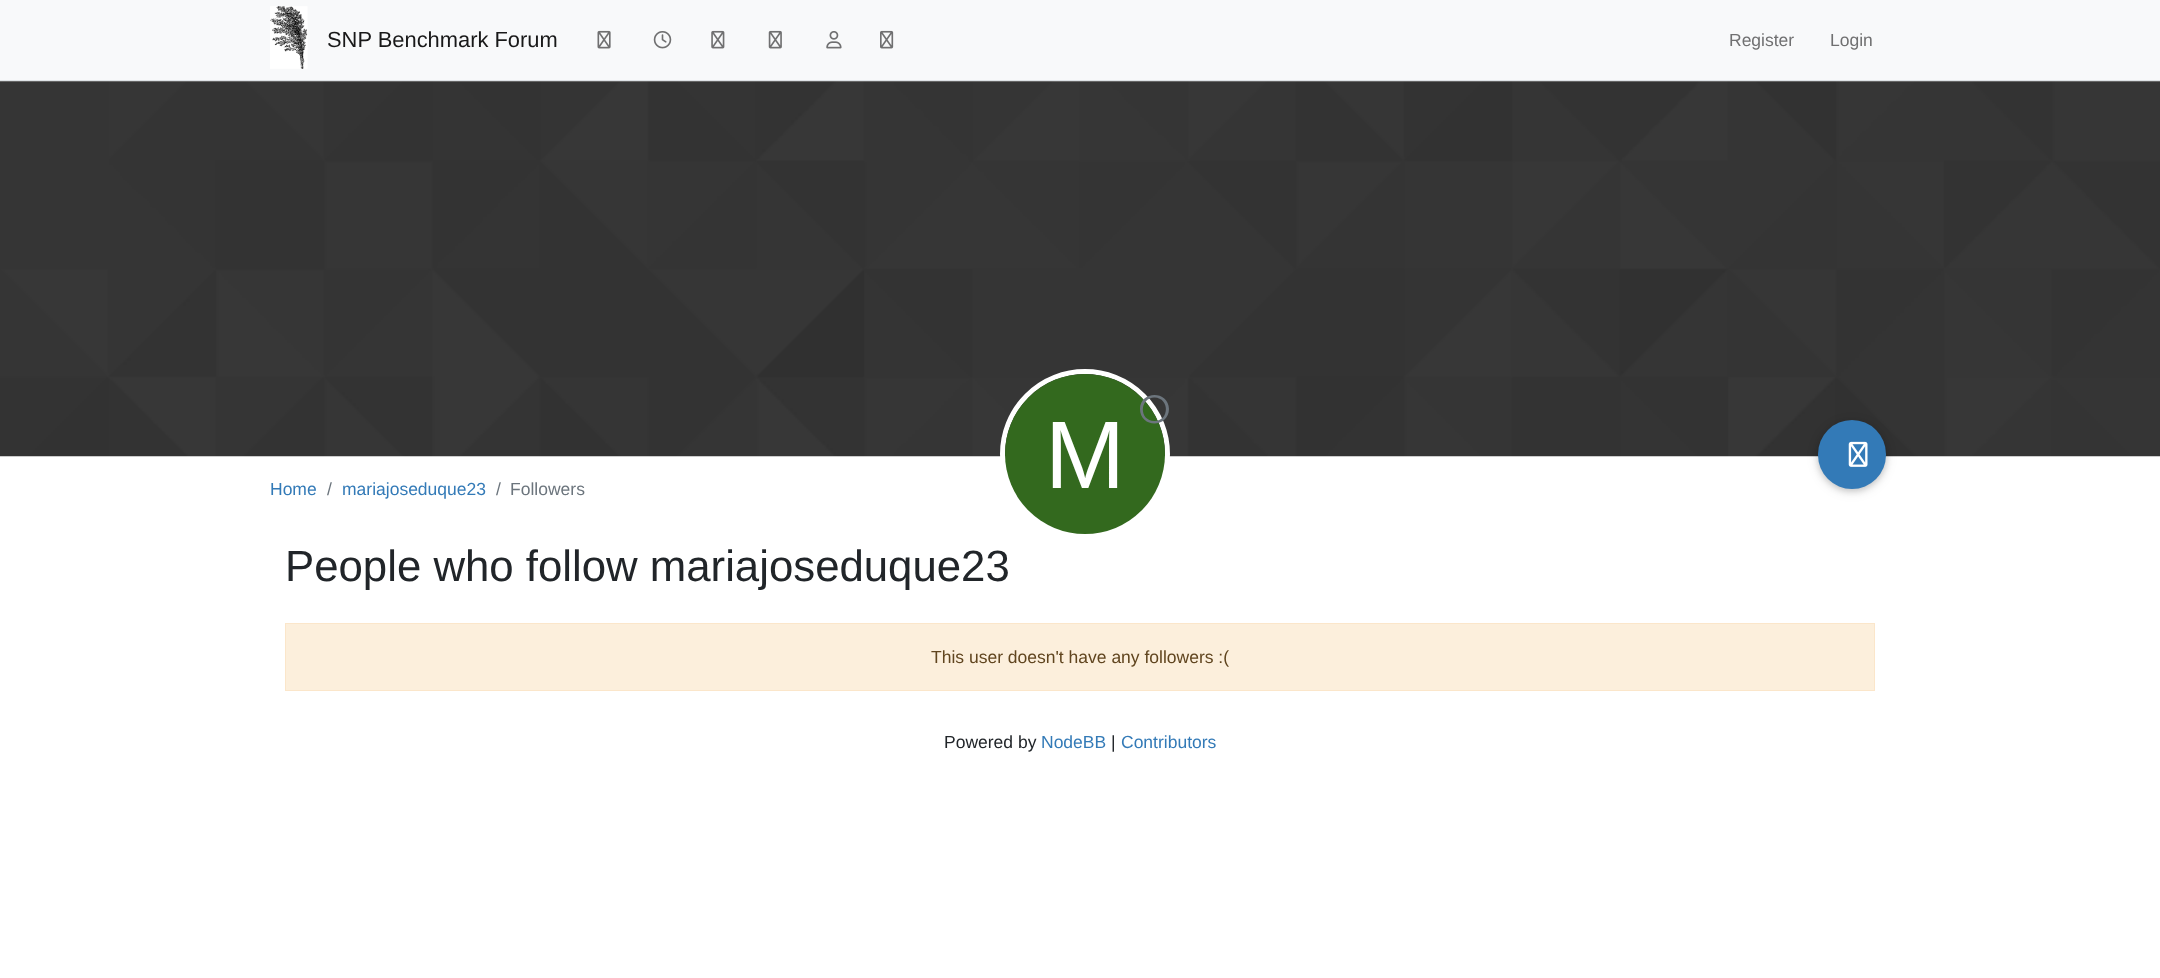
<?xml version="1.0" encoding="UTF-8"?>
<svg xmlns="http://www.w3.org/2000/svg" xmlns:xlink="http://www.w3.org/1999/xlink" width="2160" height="978">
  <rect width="100%" height="100%" fill="#ffffff" />
  <rect width="2160" height="80" fill="#f8f9fa" />
  <rect y="80" width="2160" height="1" fill="#dee2e6" />
  <image x="270" y="6" width="38" height="63" xlink:href="image1.png" />
  <image x="597" y="30" width="14" height="19" xlink:href="image2.png" />
  <image x="653" y="31" width="19" height="18" xlink:href="image3.png" />
  <image x="711" y="30" width="14" height="19" xlink:href="image4.png" />
  <image x="768" y="30" width="14" height="19" xlink:href="image5.png" />
  <image x="826" y="31" width="16" height="18" xlink:href="image6.png" />
  <image x="880" y="30" width="14" height="19" xlink:href="image7.png" />
  <image x="0" y="81" width="2160" height="376" xlink:href="image8.png" />
  <circle cx="1085" cy="454" r="82.5" fill="none" stroke="#ffffff" stroke-width="5" />
  <circle cx="1085" cy="454" r="80" fill="#33691e" />
  <path d="M 1169 409 c -0.5 19.5 -29 19 -29 0 c 0 -18.5 28.5 -19 29 0 z m -14.5 -11.5 c -15.5 0.5 -15.5 23.5 0 23.5 c 15 0 15.5 -23 0 -23.5 z" fill="#6c757d" />
  <rect x="1818" y="423" width="68" height="68" rx="34" fill="#000000" fill-opacity="0.12" filter="blur(6px)" />
  <rect x="1818" y="423" width="68" height="68" rx="34" fill="#000000" fill-opacity="0.16" filter="blur(3px)" />
  <rect x="1818" y="420" width="68" height="69" rx="34" fill="#337ab7" />
  <image x="1848" y="441" width="20" height="26" xlink:href="image9.png" />
  <rect x="285.5" y="623.5" width="1589" height="67" fill="#fcefdc" stroke="#fbe6ca" />
  <text x="327" y="47" style="font-family: Liberation Sans; font-size: 21.9px; fill: #191919">SNP Benchmark Forum</text>
  <text x="1729" y="46" style="font-family: Liberation Sans; font-size: 17.5px; fill: #707071">Register</text>
  <text x="1830" y="46" style="font-family: Liberation Sans; font-size: 17.5px; fill: #707071">Login</text>
  <text x="1045" y="488" style="font-family: Liberation Sans; font-size: 96px; fill: #ffffff">M</text>
  <text x="270" y="495" style="font-family: Liberation Sans; font-size: 17.5px; fill: #337ab7">Home</text>
  <text x="327" y="495" style="font-family: Liberation Sans; font-size: 17.5px; fill: #6c757d">/</text>
  <text x="342" y="495" style="font-family: Liberation Sans; font-size: 17.5px; fill: #337ab7">mariajoseduque23</text>
  <text x="496" y="495" style="font-family: Liberation Sans; font-size: 17.5px; fill: #6c757d">/</text>
  <text x="510" y="495" style="font-family: Liberation Sans; font-size: 17.5px; fill: #6c757d">Followers</text>
  <text x="285" y="581" style="font-family: Liberation Sans; font-size: 43.75px; fill: #212529">People who follow mariajoseduque23</text>
  <text x="931" y="663" style="font-family: Liberation Sans; font-size: 17.5px; fill: #60451f">This user doesn't have any followers :(</text>
  <text x="944" y="748" style="font-family: Liberation Sans; font-size: 17.5px; fill: #212529">Powered by</text>
  <text x="1041" y="748" style="font-family: Liberation Sans; font-size: 17.5px; fill: #337ab7">NodeBB</text>
  <text x="1111" y="748" style="font-family: Liberation Sans; font-size: 17.5px; fill: #212529">|</text>
  <text x="1121" y="748" style="font-family: Liberation Sans; font-size: 17.5px; fill: #337ab7">Contributors</text>
</svg>
